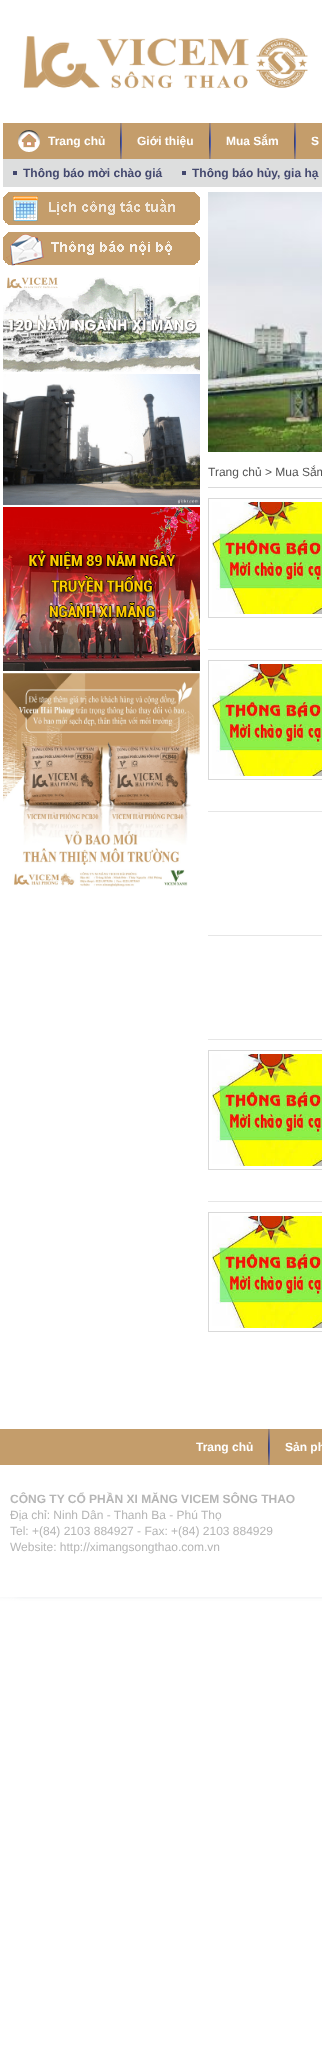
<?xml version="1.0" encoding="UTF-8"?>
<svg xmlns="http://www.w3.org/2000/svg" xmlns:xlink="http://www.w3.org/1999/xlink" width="322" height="2051">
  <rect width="100%" height="100%" fill="#ffffff" />
  <rect x="-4" y="6" width="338" height="1585" fill="#9dacb3" filter="blur(4px)" />
  <rect x="16" y="6" width="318" height="1585" fill="#9dacb3" filter="blur(4px)" />
  <rect width="322" height="1597" fill="#ffffff" />
  <image x="23" y="36" width="285" height="53" xlink:href="image1.png" />
  <rect x="3" y="159" width="319" height="28" fill="#dddede" />
  <rect x="3" y="123" width="319" height="36" fill="#c49d6b" />
  <image x="120" y="123" width="2" height="36" xlink:href="image2.png" />
  <image x="18" y="130" width="22" height="22" xlink:href="image3.png" />
  <image x="209" y="123" width="2" height="36" xlink:href="image2.png" />
  <image x="294" y="123" width="2" height="36" xlink:href="image2.png" />
  <rect x="13" y="171" width="4" height="4" fill="#43486e" />
  <rect x="182" y="171" width="4" height="4" fill="#43486e" />
  <image x="3" y="192" width="197" height="33" xlink:href="image4.png" />
  <image x="3" y="232" width="197" height="34" xlink:href="image5.png" />
  <image x="3" y="277" width="197" height="95" xlink:href="image6.png" />
  <image x="3" y="374" width="197" height="131" xlink:href="image7.png" />
  <image x="3" y="507" width="197" height="164" xlink:href="image8.png" />
  <image x="3" y="673" width="197" height="214" xlink:href="image9.png" />
  <image x="208" y="192" width="114" height="260" xlink:href="image10.png" />
  <rect x="208" y="487" width="114" height="1" fill="#dadada" />
  <rect x="208" y="649" width="114" height="1" fill="#e6e6e6" />
  <rect x="208.5" y="498.5" width="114" height="119" fill="none" stroke="#d9d9d9" />
  <image x="212" y="502" width="110" height="112" xlink:href="image11.png" />
  <rect x="208" y="811" width="114" height="1" fill="#e6e6e6" />
  <rect x="208.5" y="660.5" width="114" height="119" fill="none" stroke="#d9d9d9" />
  <image x="212" y="664" width="110" height="112" xlink:href="image11.png" />
  <rect x="208" y="935" width="114" height="1" fill="#e6e6e6" />
  <rect x="208" y="1039" width="114" height="1" fill="#e6e6e6" />
  <rect x="208" y="1201" width="114" height="1" fill="#e6e6e6" />
  <rect x="208.5" y="1050.5" width="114" height="119" fill="none" stroke="#d9d9d9" />
  <image x="212" y="1054" width="110" height="112" xlink:href="image11.png" />
  <rect x="208.5" y="1212.5" width="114" height="119" fill="none" stroke="#d9d9d9" />
  <image x="212" y="1216" width="110" height="112" xlink:href="image11.png" />
  <rect y="1429" width="322" height="36" fill="#c49d6b" />
  <image x="268" y="1429" width="2" height="36" xlink:href="image2.png" />
  <text x="48" y="145" style="font-family: Liberation Sans; font-size: 12px; font-weight: bold; fill: #ffffff">Trang chủ</text>
  <text x="137" y="145" style="font-family: Liberation Sans; font-size: 12px; font-weight: bold; fill: #ffffff">Giới thiệu</text>
  <text x="226" y="145" style="font-family: Liberation Sans; font-size: 12px; font-weight: bold; fill: #ffffff">Mua Sắm</text>
  <text x="311" y="145" style="font-family: Liberation Sans; font-size: 12px; font-weight: bold; fill: #ffffff">S</text>
  <text x="23" y="177" style="font-family: Liberation Sans; font-size: 12px; font-weight: bold; fill: #43486e">Thông báo mời chào giá</text>
  <text x="192" y="177" style="font-family: Liberation Sans; font-size: 12px; font-weight: bold; fill: #43486e">Thông báo hủy, gia hạ</text>
  <text x="208" y="476" style="font-family: Liberation Sans; font-size: 12px; fill: #555555">Trang chủ &gt; Mua Sắm</text>
  <text x="196" y="1451" style="font-family: Liberation Sans; font-size: 12px; font-weight: bold; fill: #ffffff">Trang chủ</text>
  <text x="285" y="1451" style="font-family: Liberation Sans; font-size: 12px; font-weight: bold; fill: #ffffff">Sản ph</text>
  <text x="10" y="1503" style="font-family: Liberation Sans; font-size: 12px; font-weight: bold; fill: #b6b6b6">CÔNG TY CỔ PHẦN XI MĂNG VICEM SÔNG THAO</text>
  <text x="10" y="1519" style="font-family: Liberation Sans; font-size: 12px; fill: #b6b6b6">Địa chỉ: Ninh Dân - Thanh Ba - Phú Thọ</text>
  <text x="10" y="1535" style="font-family: Liberation Sans; font-size: 12px; fill: #b6b6b6">Tel: +(84) 2103 884927 - Fax: +(84) 2103 884929</text>
  <text x="10" y="1551" style="font-family: Liberation Sans; font-size: 12px; fill: #b6b6b6">Website: http://ximangsongthao.com.vn</text>
</svg>
